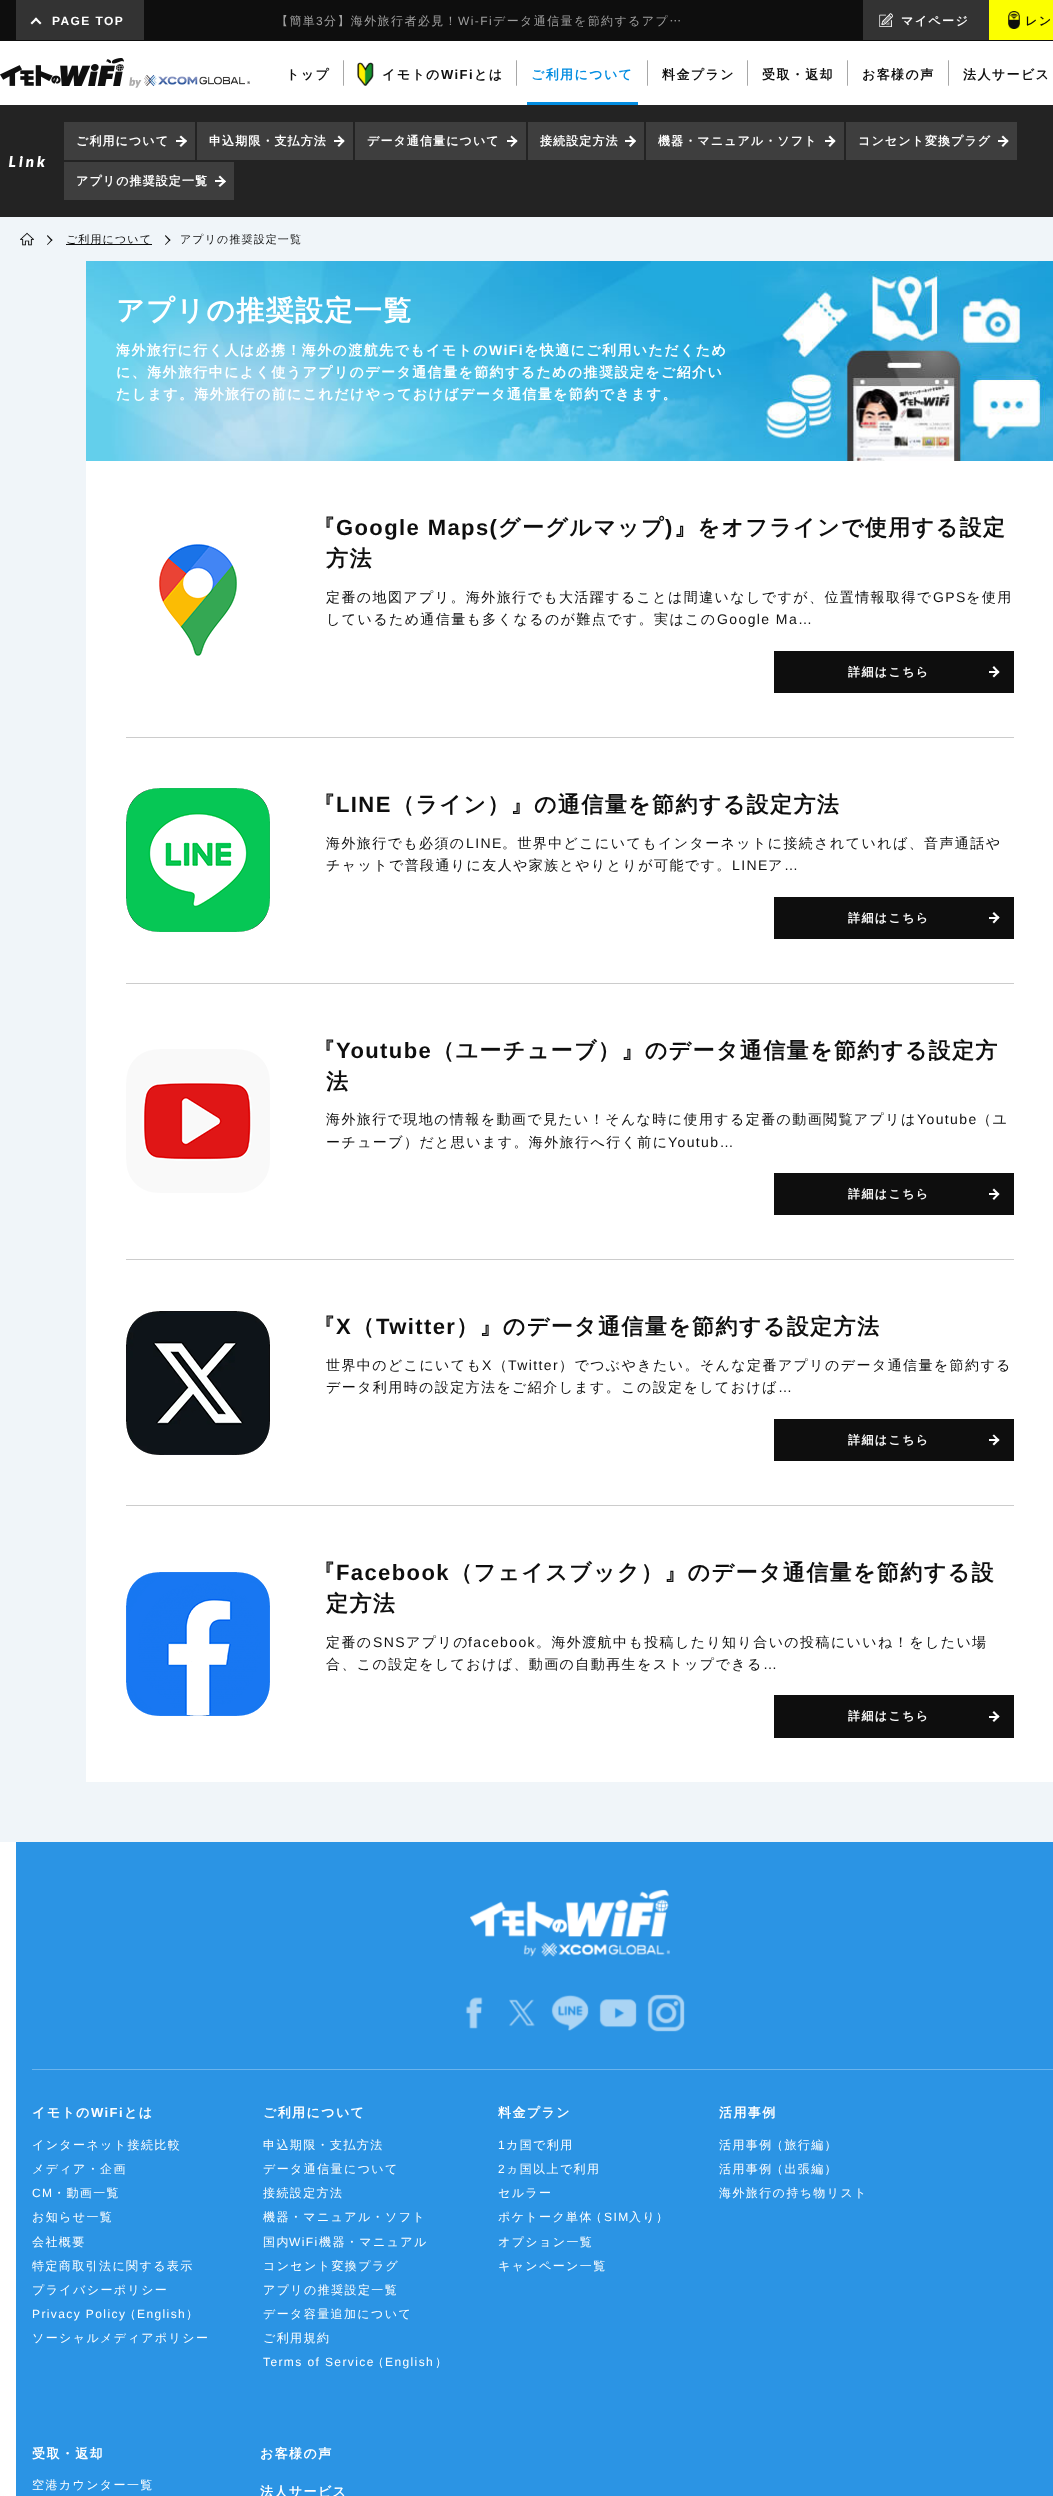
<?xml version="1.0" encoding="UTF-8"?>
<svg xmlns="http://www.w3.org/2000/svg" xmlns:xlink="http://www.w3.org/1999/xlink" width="1053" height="2496">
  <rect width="100%" height="100%" fill="#ffffff" />
  <rect width="1053" height="41" fill="#0e0e0e" />
  <rect x="16" width="128" height="40" fill="#333333" />
  <path d="M 30.5 23 l 5.5 -5.5 l 1.5 1.5 l -5.5 5.5 z" fill="#ffffff" />
  <path d="M 34.5 19 l 1.5 -1.5 l 5.5 5.5 l -1.5 1.5 z" fill="#ffffff" />
  <rect x="863" width="126" height="40" fill="#333333" />
  <image x="879" y="13" width="14" height="14" xlink:href="image1.png" />
  <rect x="989" width="64" height="40" fill="#fcff00" />
  <image x="1008" y="11" width="12" height="18" xlink:href="image2.png" />
  <image x="0" y="58" width="250" height="30" xlink:href="image3.png" />
  <image x="343" y="60" width="1" height="26" xlink:href="image4.png" />
  <image x="516" y="60" width="1" height="26" xlink:href="image4.png" />
  <image x="357" y="62" width="17" height="24" xlink:href="image5.png" />
  <image x="647" y="60" width="1" height="26" xlink:href="image4.png" />
  <rect x="527" y="102" width="111" height="3" fill="#038de1" />
  <image x="747" y="60" width="1" height="26" xlink:href="image4.png" />
  <image x="847" y="60" width="1" height="26" xlink:href="image4.png" />
  <image x="948" y="60" width="1" height="26" xlink:href="image4.png" />
  <rect y="105" width="1053" height="112" fill="#232323" />
  <image x="8" y="156" width="38" height="11" xlink:href="image6.png" />
  <rect x="64" y="122" width="131" height="38" fill="#3e3e3e" />
  <rect x="176" y="140" width="9" height="2" fill="#ffffff" />
  <path d="M 181 135.5 l 6 5.5 l -1.5 1.5 l -6 -5.5 z" fill="#ffffff" />
  <path d="M 185.5 139.5 l 1.5 1.5 l -6 6 l -1.5 -1.5 z" fill="#ffffff" />
  <rect x="197" y="122" width="156" height="38" fill="#3e3e3e" />
  <rect x="334" y="140" width="9" height="2" fill="#ffffff" />
  <path d="M 339 135.5 l 5.5 5.5 l -1 1.5 l -6 -5.5 z" fill="#ffffff" />
  <path d="M 343.5 139.5 l 1 1.5 l -5.5 6 l -1.5 -1.5 z" fill="#ffffff" />
  <rect x="355" y="122" width="171" height="38" fill="#3e3e3e" />
  <rect x="507" y="140" width="9" height="2" fill="#ffffff" />
  <path d="M 511.5 135.5 l 6 5.5 l -1.5 1.5 l -5.5 -5.5 z" fill="#ffffff" />
  <path d="M 516 139.5 l 1.5 1.5 l -6 6 l -1 -1.5 z" fill="#ffffff" />
  <rect x="528" y="122" width="116" height="38" fill="#3e3e3e" />
  <rect x="625" y="140" width="9" height="2" fill="#ffffff" />
  <path d="M 630.5 135.5 l 5.5 5.5 l -1.5 1.5 l -5.5 -5.5 z" fill="#ffffff" />
  <path d="M 634.5 139.5 l 1.5 1.5 l -5.5 6 l -1.5 -1.5 z" fill="#ffffff" />
  <rect x="646" y="122" width="198" height="38" fill="#3e3e3e" />
  <rect x="825" y="140" width="9" height="2" fill="#ffffff" />
  <path d="M 830 135.5 l 5.5 5.5 l -1.5 1.5 l -5.5 -5.5 z" fill="#ffffff" />
  <path d="M 834 139.5 l 1.5 1.5 l -5.5 6 l -1.5 -1.5 z" fill="#ffffff" />
  <rect x="846" y="122" width="171" height="38" fill="#3e3e3e" />
  <rect x="998" y="140" width="9" height="2" fill="#ffffff" />
  <path d="M 1003 135.5 l 5.5 5.5 l -1 1.5 l -6 -5.5 z" fill="#ffffff" />
  <path d="M 1007.5 139.5 l 1 1.5 l -5.5 6 l -1.5 -1.5 z" fill="#ffffff" />
  <rect x="64" y="162" width="170" height="38" fill="#3e3e3e" />
  <rect x="215" y="180" width="9" height="2" fill="#ffffff" />
  <path d="M 220 175.5 l 6 6 l -1.5 1 l -6 -5.5 z" fill="#ffffff" />
  <path d="M 224.5 180 l 1.5 1.5 l -6 5.5 l -1.5 -1.5 z" fill="#ffffff" />
  <rect y="217" width="1053" height="1625" fill="#f0f5f9" />
  <image x="20" y="232" width="14" height="14" xlink:href="image7.png" />
  <path d="M 47.5 235 l 5 5 l -1 1 l -4.5 -5 z" fill="#0e0e0e" />
  <path d="M 51.5 239.5 l 1 0.5 l -5 5 l -0.5 -0.5 z" fill="#0e0e0e" />
  <rect x="66" y="244" width="86" height="1" fill="#0e0e0e" />
  <path d="M 165.5 235 l 5 5 l -1 1 l -4.5 -5 z" fill="#0e0e0e" />
  <path d="M 169.5 239.5 l 1 0.5 l -5 5 l -0.5 -0.5 z" fill="#0e0e0e" />
  <image x="86" y="261" width="967" height="200" xlink:href="image8.png" />
  <rect x="86" y="461" width="967" height="1321" fill="#ffffff" />
  <image x="159" y="544" width="78" height="112" xlink:href="image9.png" />
  <rect x="774" y="651" width="240" height="42" fill="#0e0e0e" />
  <rect x="989" y="671" width="9" height="2" fill="#ffffff" />
  <path d="M 994 666 l 5.5 6 l -1.5 1.5 l -5.5 -6 z" fill="#ffffff" />
  <path d="M 998 670.5 l 1.5 1.5 l -5.5 5.5 l -1.5 -1.5 z" fill="#ffffff" />
  <rect x="126" y="737" width="888" height="1" fill="#cccccc" />
  <image x="126" y="788" width="144" height="144" xlink:href="image10.png" />
  <rect x="774" y="897" width="240" height="42" fill="#0e0e0e" />
  <rect x="989" y="917" width="9" height="2" fill="#ffffff" />
  <path d="M 994 912 l 5.5 5.5 l -1.5 1.5 l -5.5 -5.5 z" fill="#ffffff" />
  <path d="M 998 916 l 1.5 1.5 l -5.5 6 l -1.5 -1.5 z" fill="#ffffff" />
  <rect x="126" y="983" width="888" height="1" fill="#cccccc" />
  <image x="126" y="1049" width="144" height="144" xlink:href="image11.png" />
  <rect x="774" y="1173" width="240" height="42" fill="#0e0e0e" />
  <rect x="989" y="1193" width="9" height="2" fill="#ffffff" />
  <path d="M 994 1188.5 l 5.5 5.5 l -1.5 1.5 l -5.5 -5.5 z" fill="#ffffff" />
  <path d="M 998 1193 l 1.5 1 l -5.5 6 l -1.5 -1.5 z" fill="#ffffff" />
  <rect x="126" y="1259" width="888" height="1" fill="#cccccc" />
  <image x="126" y="1311" width="144" height="144" xlink:href="image12.png" />
  <rect x="774" y="1419" width="240" height="42" fill="#0e0e0e" />
  <rect x="989" y="1439" width="9" height="2" fill="#ffffff" />
  <path d="M 994 1434.5 l 5.5 5.5 l -1.5 1.5 l -5.5 -6 z" fill="#ffffff" />
  <path d="M 998 1438.5 l 1.5 1.5 l -5.5 5.5 l -1.5 -1.5 z" fill="#ffffff" />
  <rect x="126" y="1505" width="888" height="1" fill="#cccccc" />
  <image x="126" y="1572" width="144" height="144" xlink:href="image13.png" />
  <rect x="774" y="1695" width="240" height="43" fill="#0e0e0e" />
  <rect x="989" y="1716" width="9" height="2" fill="#ffffff" />
  <path d="M 994 1711 l 5.5 5.5 l -1.5 1.5 l -5.5 -5.5 z" fill="#ffffff" />
  <path d="M 998 1715 l 1.5 1.5 l -5.5 5.5 l -1.5 -1.5 z" fill="#ffffff" />
  <rect x="16" y="1842" width="1037" height="654" fill="#2b94e4" />
  <image x="470" y="1889" width="200" height="68" xlink:href="image14.png" />
  <image x="465" y="1997" width="18" height="32" xlink:href="image15.png" />
  <image x="509" y="1999" width="26" height="28" xlink:href="image16.png" />
  <image x="551" y="1995" width="38" height="36" xlink:href="image17.png" />
  <image x="599" y="1999" width="38" height="29" xlink:href="image18.png" />
  <image x="647" y="1994" width="38" height="38" xlink:href="image19.png" />
  <rect x="32" y="2069" width="1021" height="1" fill="#6bb4ec" />
  <text x="276" y="25" style="font-family: WenQuanYi Zen Hei; font-size: 12px; font-weight: 500; letter-spacing: 1.4px; fill: #9f9f9f">【簡単</text>
  <text x="316" y="25" style="font-family: Liberation Sans; font-size: 12px; letter-spacing: 1.4px; fill: #9f9f9f">3</text>
  <text x="324" y="25" style="font-family: WenQuanYi Zen Hei; font-size: 12px; font-weight: 500; letter-spacing: 1.4px; fill: #9f9f9f">分】海外旅行者必見！</text>
  <text x="458" y="25" style="font-family: Liberation Sans; font-size: 12px; letter-spacing: 1.4px; fill: #9f9f9f">Wi-Fi</text>
  <text x="493" y="25" style="font-family: WenQuanYi Zen Hei; font-size: 12px; font-weight: 500; letter-spacing: 1.4px; fill: #9f9f9f">データ通信量を節約するアプ…</text>
  <text x="52" y="25" style="font-family: Liberation Sans; font-size: 12px; font-weight: bold; letter-spacing: 1.4px; fill: #ffffff">PAGE TOP</text>
  <text x="901" y="25" style="font-family: WenQuanYi Zen Hei; font-size: 12px; font-weight: bold; letter-spacing: 1.4px; fill: #ffffff">マイページ</text>
  <text x="1025" y="25" style="font-family: WenQuanYi Zen Hei; font-size: 12px; font-weight: bold; letter-spacing: 1.4px; fill: #0e0e0e">レン</text>
  <text x="286" y="79" style="font-family: WenQuanYi Zen Hei; font-size: 13px; font-weight: bold; letter-spacing: 1.4px; fill: #0e0e0e">トップ</text>
  <text x="382" y="79" style="font-family: WenQuanYi Zen Hei; font-size: 13px; font-weight: bold; letter-spacing: 1.4px; fill: #0e0e0e">イモトの</text>
  <text x="441" y="79" style="font-family: Liberation Sans; font-size: 13px; font-weight: bold; letter-spacing: 1.4px; fill: #0e0e0e">WiFi</text>
  <text x="474" y="79" style="font-family: WenQuanYi Zen Hei; font-size: 13px; font-weight: bold; letter-spacing: 1.4px; fill: #0e0e0e">とは</text>
  <text x="531" y="79" style="font-family: WenQuanYi Zen Hei; font-size: 13px; font-weight: bold; letter-spacing: 1.4px; fill: #038de1">ご利用について</text>
  <text x="662" y="79" style="font-family: WenQuanYi Zen Hei; font-size: 13px; font-weight: bold; letter-spacing: 1.4px; fill: #0e0e0e">料金プラン</text>
  <text x="762" y="79" style="font-family: WenQuanYi Zen Hei; font-size: 13px; font-weight: bold; letter-spacing: 1.4px; fill: #0e0e0e">受取・返却</text>
  <text x="862" y="79" style="font-family: WenQuanYi Zen Hei; font-size: 13px; font-weight: bold; letter-spacing: 1.4px; fill: #0e0e0e">お客様の声</text>
  <text x="963" y="79" style="font-family: WenQuanYi Zen Hei; font-size: 13px; font-weight: bold; letter-spacing: 1.4px; fill: #0e0e0e">法人サービス</text>
  <text x="76" y="145" style="font-family: WenQuanYi Zen Hei; font-size: 12px; font-weight: bold; letter-spacing: 1.1px; fill: #ffffff">ご利用について</text>
  <text x="209" y="145" style="font-family: WenQuanYi Zen Hei; font-size: 12px; font-weight: bold; letter-spacing: 1.1px; fill: #ffffff">申込期限・支払方法</text>
  <text x="367" y="145" style="font-family: WenQuanYi Zen Hei; font-size: 12px; font-weight: bold; letter-spacing: 1.1px; fill: #ffffff">データ通信量について</text>
  <text x="540" y="145" style="font-family: WenQuanYi Zen Hei; font-size: 12px; font-weight: bold; letter-spacing: 1.1px; fill: #ffffff">接続設定方法</text>
  <text x="658" y="145" style="font-family: WenQuanYi Zen Hei; font-size: 12px; font-weight: bold; letter-spacing: 1.1px; fill: #ffffff">機器・マニュアル・ソフト</text>
  <text x="858" y="145" style="font-family: WenQuanYi Zen Hei; font-size: 12px; font-weight: bold; letter-spacing: 1.1px; fill: #ffffff">コンセント変換プラグ</text>
  <text x="76" y="185" style="font-family: WenQuanYi Zen Hei; font-size: 12px; font-weight: bold; letter-spacing: 1.1px; fill: #ffffff">アプリの推奨設定一覧</text>
  <text x="66" y="243" style="font-family: WenQuanYi Zen Hei; font-size: 11px; font-weight: 500; letter-spacing: 1.1px; fill: #0e0e0e">ご利用について</text>
  <text x="180" y="243" style="font-family: WenQuanYi Zen Hei; font-size: 11px; font-weight: 500; letter-spacing: 1.1px; fill: #0e0e0e">アプリの推奨設定一覧</text>
  <text x="116" y="320" style="font-family: WenQuanYi Zen Hei; font-size: 28px; font-weight: bold; letter-spacing: 1.4px; fill: #ffffff">アプリの推奨設定一覧</text>
  <text x="116" y="355" style="font-family: WenQuanYi Zen Hei; font-size: 14px; font-weight: bold; letter-spacing: 1.4px; fill: #ffffff">海外旅行に行く人は必携！海外の渡航先でもイモトの</text>
  <text x="489" y="355" style="font-family: Liberation Sans; font-size: 14px; font-weight: bold; letter-spacing: 1.4px; fill: #ffffff">WiFi</text>
  <text x="524" y="355" style="font-family: WenQuanYi Zen Hei; font-size: 14px; font-weight: bold; letter-spacing: 1.4px; fill: #ffffff">を快適にご利用いただくため</text>
  <text x="116" y="377" style="font-family: WenQuanYi Zen Hei; font-size: 14px; font-weight: bold; letter-spacing: 1.4px; fill: #ffffff">に、海外旅行中によく使うアプリのデータ通信量を節約するための推奨設定をご紹介い</text>
  <text x="116" y="399" style="font-family: WenQuanYi Zen Hei; font-size: 14px; font-weight: bold; letter-spacing: 1.4px; fill: #ffffff">たします。海外旅行の前にこれだけやっておけばデータ通信量を節約できます。</text>
  <text x="313" y="535" style="font-family: WenQuanYi Zen Hei; font-size: 22px; font-weight: bold; letter-spacing: 1.4px; fill: #0e0e0e">『</text>
  <text x="336" y="535" style="font-family: Liberation Sans; font-size: 22px; font-weight: bold; letter-spacing: 1.4px; fill: #0e0e0e">Google Maps(</text>
  <text x="498" y="535" style="font-family: WenQuanYi Zen Hei; font-size: 22px; font-weight: bold; letter-spacing: 1.4px; fill: #0e0e0e">グーグルマップ</text>
  <text x="665" y="535" style="font-family: Liberation Sans; font-size: 22px; font-weight: bold; letter-spacing: 1.4px; fill: #0e0e0e">)</text>
  <text x="674" y="535" style="font-family: WenQuanYi Zen Hei; font-size: 22px; font-weight: bold; letter-spacing: 1.4px; fill: #0e0e0e">』をオフラインで使用する設定</text>
  <text x="326" y="566" style="font-family: WenQuanYi Zen Hei; font-size: 22px; font-weight: bold; letter-spacing: 1.4px; fill: #0e0e0e">方法</text>
  <text x="326" y="602" style="font-family: WenQuanYi Zen Hei; font-size: 14px; font-weight: 500; letter-spacing: 1.4px; fill: #0e0e0e">定番の地図アプリ。海外旅行でも大活躍することは間違いなしですが、位置情報取得で</text>
  <text x="933" y="602" style="font-family: Liberation Sans; font-size: 14px; letter-spacing: 1.4px; fill: #0e0e0e">GPS</text>
  <text x="966" y="602" style="font-family: WenQuanYi Zen Hei; font-size: 14px; font-weight: 500; letter-spacing: 1.4px; fill: #0e0e0e">を使用</text>
  <text x="326" y="624" style="font-family: WenQuanYi Zen Hei; font-size: 14px; font-weight: 500; letter-spacing: 1.4px; fill: #0e0e0e">しているため通信量も多くなるのが難点です。実はこの</text>
  <text x="717" y="624" style="font-family: Liberation Sans; font-size: 14px; letter-spacing: 1.4px; fill: #0e0e0e">Google Ma…</text>
  <text x="848" y="676" style="font-family: WenQuanYi Zen Hei; font-size: 12px; font-weight: bold; letter-spacing: 1.4px; fill: #ffffff">詳細はこちら</text>
  <text x="313" y="812" style="font-family: WenQuanYi Zen Hei; font-size: 22px; font-weight: bold; letter-spacing: 1.4px; fill: #0e0e0e">『</text>
  <text x="336" y="812" style="font-family: Liberation Sans; font-size: 22px; font-weight: bold; letter-spacing: 1.4px; fill: #0e0e0e">LINE</text>
  <text x="392" y="812" style="font-family: WenQuanYi Zen Hei; font-size: 22px; font-weight: bold; letter-spacing: 1.4px; fill: #0e0e0e">（ライン）』の通信量を節約する設定方法</text>
  <text x="326" y="848" style="font-family: WenQuanYi Zen Hei; font-size: 14px; font-weight: 500; letter-spacing: 1.4px; fill: #0e0e0e">海外旅行でも必須の</text>
  <text x="466" y="848" style="font-family: Liberation Sans; font-size: 14px; letter-spacing: 1.4px; fill: #0e0e0e">LINE</text>
  <text x="502" y="848" style="font-family: WenQuanYi Zen Hei; font-size: 14px; font-weight: 500; letter-spacing: 1.4px; fill: #0e0e0e">。世界中どこにいてもインターネットに接続されていれば、音声通話や</text>
  <text x="326" y="870" style="font-family: WenQuanYi Zen Hei; font-size: 14px; font-weight: 500; letter-spacing: 1.4px; fill: #0e0e0e">チャットで普段通りに友人や家族とやりとりが可能です。</text>
  <text x="732" y="870" style="font-family: Liberation Sans; font-size: 14px; letter-spacing: 1.4px; fill: #0e0e0e">LINE</text>
  <text x="768" y="870" style="font-family: WenQuanYi Zen Hei; font-size: 14px; font-weight: 500; letter-spacing: 1.4px; fill: #0e0e0e">ア</text>
  <text x="784" y="870" style="font-family: Liberation Sans; font-size: 14px; letter-spacing: 1.4px; fill: #0e0e0e">…</text>
  <text x="848" y="922" style="font-family: WenQuanYi Zen Hei; font-size: 12px; font-weight: bold; letter-spacing: 1.4px; fill: #ffffff">詳細はこちら</text>
  <text x="313" y="1058" style="font-family: WenQuanYi Zen Hei; font-size: 22px; font-weight: bold; letter-spacing: 1.4px; fill: #0e0e0e">『</text>
  <text x="336" y="1058" style="font-family: Liberation Sans; font-size: 22px; font-weight: bold; letter-spacing: 1.4px; fill: #0e0e0e">Youtube</text>
  <text x="432" y="1058" style="font-family: WenQuanYi Zen Hei; font-size: 22px; font-weight: bold; letter-spacing: 1.4px; fill: #0e0e0e">（ユーチューブ）』のデータ通信量を節約する設定方</text>
  <text x="326" y="1089" style="font-family: WenQuanYi Zen Hei; font-size: 22px; font-weight: bold; letter-spacing: 1.4px; fill: #0e0e0e">法</text>
  <text x="326" y="1124" style="font-family: WenQuanYi Zen Hei; font-size: 14px; font-weight: 500; letter-spacing: 1.4px; fill: #0e0e0e">海外旅行で現地の情報を動画で見たい！そんな時に使用する定番の動画閲覧アプリは</text>
  <text x="917" y="1124" style="font-family: Liberation Sans; font-size: 14px; letter-spacing: 1.4px; fill: #0e0e0e">Youtube</text>
  <text x="977" y="1124" style="font-family: WenQuanYi Zen Hei; font-size: 14px; font-weight: 500; letter-spacing: 1.4px; fill: #0e0e0e">（ユ</text>
  <text x="326" y="1147" style="font-family: WenQuanYi Zen Hei; font-size: 14px; font-weight: 500; letter-spacing: 1.4px; fill: #0e0e0e">ーチューブ）だと思います。海外旅行へ行く前に</text>
  <text x="668" y="1147" style="font-family: Liberation Sans; font-size: 14px; letter-spacing: 1.4px; fill: #0e0e0e">Youtub…</text>
  <text x="848" y="1198" style="font-family: WenQuanYi Zen Hei; font-size: 12px; font-weight: bold; letter-spacing: 1.4px; fill: #ffffff">詳細はこちら</text>
  <text x="313" y="1334" style="font-family: WenQuanYi Zen Hei; font-size: 22px; font-weight: bold; letter-spacing: 1.4px; fill: #0e0e0e">『</text>
  <text x="336" y="1334" style="font-family: Liberation Sans; font-size: 22px; font-weight: bold; letter-spacing: 1.4px; fill: #0e0e0e">X</text>
  <text x="352" y="1334" style="font-family: WenQuanYi Zen Hei; font-size: 22px; font-weight: bold; letter-spacing: 1.4px; fill: #0e0e0e">（</text>
  <text x="376" y="1334" style="font-family: Liberation Sans; font-size: 22px; font-weight: bold; letter-spacing: 1.4px; fill: #0e0e0e">Twitter</text>
  <text x="456" y="1334" style="font-family: WenQuanYi Zen Hei; font-size: 22px; font-weight: bold; letter-spacing: 1.4px; fill: #0e0e0e">）』のデータ通信量を節約する設定方法</text>
  <text x="326" y="1370" style="font-family: WenQuanYi Zen Hei; font-size: 14px; font-weight: 500; letter-spacing: 1.4px; fill: #0e0e0e">世界中のどこにいても</text>
  <text x="482" y="1370" style="font-family: Liberation Sans; font-size: 14px; letter-spacing: 1.4px; fill: #0e0e0e">X</text>
  <text x="493" y="1370" style="font-family: WenQuanYi Zen Hei; font-size: 14px; font-weight: 500; letter-spacing: 1.4px; fill: #0e0e0e">（</text>
  <text x="508" y="1370" style="font-family: Liberation Sans; font-size: 14px; letter-spacing: 1.4px; fill: #0e0e0e">Twitter</text>
  <text x="559" y="1370" style="font-family: WenQuanYi Zen Hei; font-size: 14px; font-weight: 500; letter-spacing: 1.4px; fill: #0e0e0e">）でつぶやきたい。そんな定番アプリのデータ通信量を節約する</text>
  <text x="326" y="1392" style="font-family: WenQuanYi Zen Hei; font-size: 14px; font-weight: 500; letter-spacing: 1.4px; fill: #0e0e0e">データ利用時の設定方法をご紹介します。この設定をしておけば</text>
  <text x="778" y="1392" style="font-family: Liberation Sans; font-size: 14px; letter-spacing: 1.4px; fill: #0e0e0e">…</text>
  <text x="848" y="1444" style="font-family: WenQuanYi Zen Hei; font-size: 12px; font-weight: bold; letter-spacing: 1.4px; fill: #ffffff">詳細はこちら</text>
  <text x="313" y="1580" style="font-family: WenQuanYi Zen Hei; font-size: 22px; font-weight: bold; letter-spacing: 1.4px; fill: #0e0e0e">『</text>
  <text x="336" y="1580" style="font-family: Liberation Sans; font-size: 22px; font-weight: bold; letter-spacing: 1.4px; fill: #0e0e0e">Facebook</text>
  <text x="450" y="1580" style="font-family: WenQuanYi Zen Hei; font-size: 22px; font-weight: bold; letter-spacing: 1.4px; fill: #0e0e0e">（フェイスブック）』のデータ通信量を節約する設</text>
  <text x="326" y="1611" style="font-family: WenQuanYi Zen Hei; font-size: 22px; font-weight: bold; letter-spacing: 1.4px; fill: #0e0e0e">定方法</text>
  <text x="326" y="1647" style="font-family: WenQuanYi Zen Hei; font-size: 14px; font-weight: 500; letter-spacing: 1.4px; fill: #0e0e0e">定番の</text>
  <text x="373" y="1647" style="font-family: Liberation Sans; font-size: 14px; letter-spacing: 1.4px; fill: #0e0e0e">SNS</text>
  <text x="406" y="1647" style="font-family: WenQuanYi Zen Hei; font-size: 14px; font-weight: 500; letter-spacing: 1.4px; fill: #0e0e0e">アプリの</text>
  <text x="468" y="1647" style="font-family: Liberation Sans; font-size: 14px; letter-spacing: 1.4px; fill: #0e0e0e">facebook</text>
  <text x="536" y="1647" style="font-family: WenQuanYi Zen Hei; font-size: 14px; font-weight: 500; letter-spacing: 1.4px; fill: #0e0e0e">。海外渡航中も投稿したり知り合いの投稿にいいね！をしたい場</text>
  <text x="326" y="1669" style="font-family: WenQuanYi Zen Hei; font-size: 14px; font-weight: 500; letter-spacing: 1.4px; fill: #0e0e0e">合、この設定をしておけば、動画の自動再生をストップできる</text>
  <text x="763" y="1669" style="font-family: Liberation Sans; font-size: 14px; letter-spacing: 1.4px; fill: #0e0e0e">…</text>
  <text x="848" y="1720" style="font-family: WenQuanYi Zen Hei; font-size: 12px; font-weight: bold; letter-spacing: 1.4px; fill: #ffffff">詳細はこちら</text>
  <text x="32" y="2117" style="font-family: WenQuanYi Zen Hei; font-size: 13px; font-weight: bold; letter-spacing: 1.4px; fill: #ffffff">イモトの</text>
  <text x="91" y="2117" style="font-family: Liberation Sans; font-size: 13px; font-weight: bold; letter-spacing: 1.4px; fill: #ffffff">WiFi</text>
  <text x="124" y="2117" style="font-family: WenQuanYi Zen Hei; font-size: 13px; font-weight: bold; letter-spacing: 1.4px; fill: #ffffff">とは</text>
  <text x="32" y="2149" style="font-family: WenQuanYi Zen Hei; font-size: 12px; font-weight: 500; letter-spacing: 1.4px; fill: #ffffff">インターネット接続比較</text>
  <text x="32" y="2173" style="font-family: WenQuanYi Zen Hei; font-size: 12px; font-weight: 500; letter-spacing: 1.4px; fill: #ffffff">メディア・企画</text>
  <text x="32" y="2197" style="font-family: Liberation Sans; font-size: 12px; letter-spacing: 1.4px; fill: #ffffff">CM</text>
  <text x="53" y="2197" style="font-family: WenQuanYi Zen Hei; font-size: 12px; font-weight: 500; letter-spacing: 1.4px; fill: #ffffff">・動画一覧</text>
  <text x="32" y="2221" style="font-family: WenQuanYi Zen Hei; font-size: 12px; font-weight: 500; letter-spacing: 1.4px; fill: #ffffff">お知らせ一覧</text>
  <text x="32" y="2246" style="font-family: WenQuanYi Zen Hei; font-size: 12px; font-weight: 500; letter-spacing: 1.4px; fill: #ffffff">会社概要</text>
  <text x="32" y="2270" style="font-family: WenQuanYi Zen Hei; font-size: 12px; font-weight: 500; letter-spacing: 1.4px; fill: #ffffff">特定商取引法に関する表示</text>
  <text x="32" y="2294" style="font-family: WenQuanYi Zen Hei; font-size: 12px; font-weight: 500; letter-spacing: 1.4px; fill: #ffffff">プライバシーポリシー</text>
  <text x="32" y="2318" style="font-family: Liberation Sans; font-size: 12px; letter-spacing: 1.4px; fill: #ffffff">Privacy Policy</text>
  <text x="124" y="2318" style="font-family: WenQuanYi Zen Hei; font-size: 12px; font-weight: 500; letter-spacing: 1.4px; fill: #ffffff">（</text>
  <text x="137" y="2318" style="font-family: Liberation Sans; font-size: 12px; letter-spacing: 1.4px; fill: #ffffff">English</text>
  <text x="186" y="2318" style="font-family: WenQuanYi Zen Hei; font-size: 12px; font-weight: 500; letter-spacing: 1.4px; fill: #ffffff">）</text>
  <text x="32" y="2342" style="font-family: WenQuanYi Zen Hei; font-size: 12px; font-weight: 500; letter-spacing: 1.4px; fill: #ffffff">ソーシャルメディアポリシー</text>
  <text x="263" y="2117" style="font-family: WenQuanYi Zen Hei; font-size: 13px; font-weight: bold; letter-spacing: 1.4px; fill: #ffffff">ご利用について</text>
  <text x="263" y="2149" style="font-family: WenQuanYi Zen Hei; font-size: 12px; font-weight: 500; letter-spacing: 1.4px; fill: #ffffff">申込期限・支払方法</text>
  <text x="263" y="2173" style="font-family: WenQuanYi Zen Hei; font-size: 12px; font-weight: 500; letter-spacing: 1.4px; fill: #ffffff">データ通信量について</text>
  <text x="263" y="2197" style="font-family: WenQuanYi Zen Hei; font-size: 12px; font-weight: 500; letter-spacing: 1.4px; fill: #ffffff">接続設定方法</text>
  <text x="263" y="2221" style="font-family: WenQuanYi Zen Hei; font-size: 12px; font-weight: 500; letter-spacing: 1.4px; fill: #ffffff">機器・マニュアル・ソフト</text>
  <text x="263" y="2246" style="font-family: WenQuanYi Zen Hei; font-size: 12px; font-weight: 500; letter-spacing: 1.4px; fill: #ffffff">国内</text>
  <text x="289" y="2246" style="font-family: Liberation Sans; font-size: 12px; letter-spacing: 1.4px; fill: #ffffff">WiFi</text>
  <text x="319" y="2246" style="font-family: WenQuanYi Zen Hei; font-size: 12px; font-weight: 500; letter-spacing: 1.4px; fill: #ffffff">機器・マニュアル</text>
  <text x="263" y="2270" style="font-family: WenQuanYi Zen Hei; font-size: 12px; font-weight: 500; letter-spacing: 1.4px; fill: #ffffff">コンセント変換プラグ</text>
  <text x="263" y="2294" style="font-family: WenQuanYi Zen Hei; font-size: 12px; font-weight: 500; letter-spacing: 1.4px; fill: #ffffff">アプリの推奨設定一覧</text>
  <text x="263" y="2318" style="font-family: WenQuanYi Zen Hei; font-size: 12px; font-weight: 500; letter-spacing: 1.4px; fill: #ffffff">データ容量追加について</text>
  <text x="263" y="2342" style="font-family: WenQuanYi Zen Hei; font-size: 12px; font-weight: 500; letter-spacing: 1.4px; fill: #ffffff">ご利用規約</text>
  <text x="263" y="2366" style="font-family: Liberation Sans; font-size: 12px; letter-spacing: 1.4px; fill: #ffffff">Terms of Service</text>
  <text x="372" y="2366" style="font-family: WenQuanYi Zen Hei; font-size: 12px; font-weight: 500; letter-spacing: 1.4px; fill: #ffffff">（</text>
  <text x="385" y="2366" style="font-family: Liberation Sans; font-size: 12px; letter-spacing: 1.4px; fill: #ffffff">English</text>
  <text x="435" y="2366" style="font-family: WenQuanYi Zen Hei; font-size: 12px; font-weight: 500; letter-spacing: 1.4px; fill: #ffffff">）</text>
  <text x="498" y="2117" style="font-family: WenQuanYi Zen Hei; font-size: 13px; font-weight: bold; letter-spacing: 1.4px; fill: #ffffff">料金プラン</text>
  <text x="498" y="2149" style="font-family: Liberation Sans; font-size: 12px; letter-spacing: 1.4px; fill: #ffffff">1</text>
  <text x="506" y="2149" style="font-family: WenQuanYi Zen Hei; font-size: 12px; font-weight: 500; letter-spacing: 1.4px; fill: #ffffff">カ国で利用</text>
  <text x="498" y="2173" style="font-family: Liberation Sans; font-size: 12px; letter-spacing: 1.4px; fill: #ffffff">2</text>
  <text x="506" y="2173" style="font-family: WenQuanYi Zen Hei; font-size: 12px; font-weight: 500; letter-spacing: 1.4px; fill: #ffffff">ヵ国以上で利用</text>
  <text x="498" y="2197" style="font-family: WenQuanYi Zen Hei; font-size: 12px; font-weight: 500; letter-spacing: 1.4px; fill: #ffffff">セルラー</text>
  <text x="498" y="2221" style="font-family: WenQuanYi Zen Hei; font-size: 12px; font-weight: 500; letter-spacing: 1.4px; fill: #ffffff">ポケトーク単体</text>
  <text x="590" y="2221" style="font-family: WenQuanYi Zen Hei; font-size: 12px; font-weight: 500; letter-spacing: 1.4px; fill: #ffffff">（</text>
  <text x="604" y="2221" style="font-family: Liberation Sans; font-size: 12px; letter-spacing: 1.4px; fill: #ffffff">SIM</text>
  <text x="629" y="2221" style="font-family: WenQuanYi Zen Hei; font-size: 12px; font-weight: 500; letter-spacing: 1.4px; fill: #ffffff">入り）</text>
  <text x="498" y="2246" style="font-family: WenQuanYi Zen Hei; font-size: 12px; font-weight: 500; letter-spacing: 1.4px; fill: #ffffff">オプション一覧</text>
  <text x="498" y="2270" style="font-family: WenQuanYi Zen Hei; font-size: 12px; font-weight: 500; letter-spacing: 1.4px; fill: #ffffff">キャンペーン一覧</text>
  <text x="719" y="2117" style="font-family: WenQuanYi Zen Hei; font-size: 13px; font-weight: bold; letter-spacing: 1.4px; fill: #ffffff">活用事例</text>
  <text x="719" y="2149" style="font-family: WenQuanYi Zen Hei; font-size: 12px; font-weight: 500; letter-spacing: 1.4px; fill: #ffffff">活用事例</text>
  <text x="771" y="2149" style="font-family: WenQuanYi Zen Hei; font-size: 12px; font-weight: 500; letter-spacing: 1.4px; fill: #ffffff">（旅行編）</text>
  <text x="719" y="2173" style="font-family: WenQuanYi Zen Hei; font-size: 12px; font-weight: 500; letter-spacing: 1.4px; fill: #ffffff">活用事例</text>
  <text x="771" y="2173" style="font-family: WenQuanYi Zen Hei; font-size: 12px; font-weight: 500; letter-spacing: 1.4px; fill: #ffffff">（出張編）</text>
  <text x="719" y="2197" style="font-family: WenQuanYi Zen Hei; font-size: 12px; font-weight: 500; letter-spacing: 1.4px; fill: #ffffff">海外旅行の持ち物リスト</text>
  <text x="32" y="2458" style="font-family: WenQuanYi Zen Hei; font-size: 13px; font-weight: bold; letter-spacing: 1.4px; fill: #ffffff">受取・返却</text>
  <text x="32" y="2489" style="font-family: WenQuanYi Zen Hei; font-size: 12px; font-weight: 500; letter-spacing: 1.4px; fill: #ffffff">空港カウンター一覧</text>
  <text x="260" y="2458" style="font-family: WenQuanYi Zen Hei; font-size: 13px; font-weight: bold; letter-spacing: 1.4px; fill: #ffffff">お客様の声</text>
  <text x="260" y="2496" style="font-family: WenQuanYi Zen Hei; font-size: 13px; font-weight: bold; letter-spacing: 1.4px; fill: #ffffff">法人サービス</text>
</svg>
